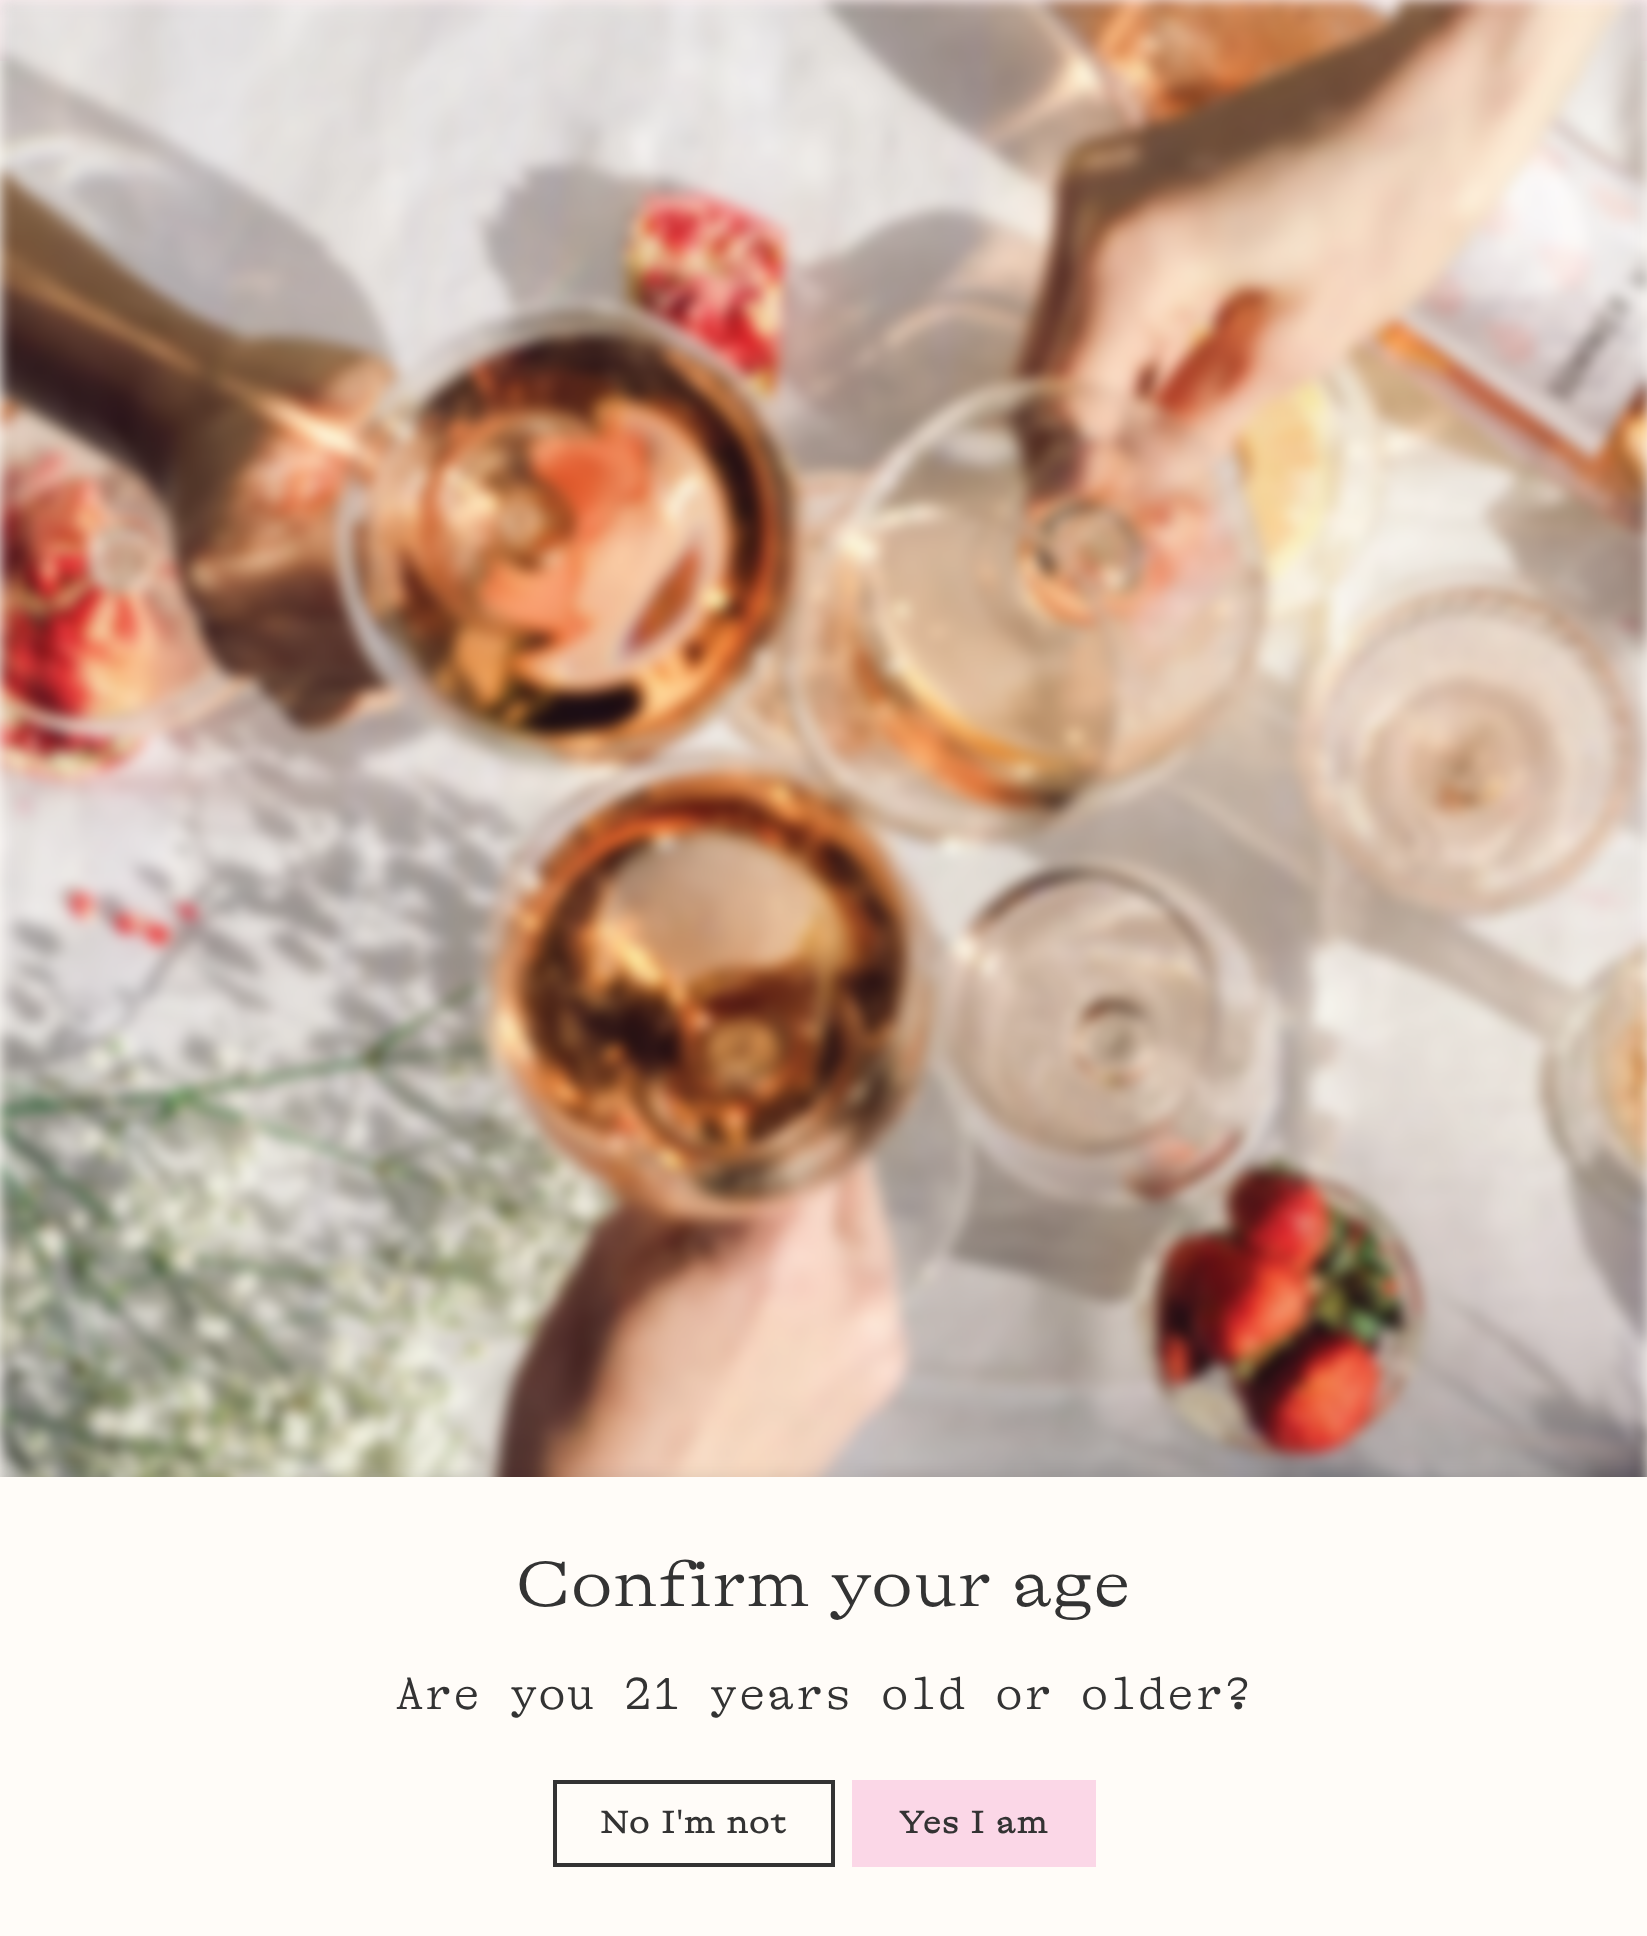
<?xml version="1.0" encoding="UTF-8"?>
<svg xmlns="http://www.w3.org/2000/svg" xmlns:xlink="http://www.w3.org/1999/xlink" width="1647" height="1936">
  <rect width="100%" height="100%" fill="#fffcf8" />
  <rect width="1647" height="61" fill="#fdedf1" />
  <image x="0" y="0" width="1647" height="1477" xlink:href="image1.png" />
  <rect y="1477" width="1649" height="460" fill="#000000" fill-opacity="0.1" filter="blur(9px)" />
  <rect y="1477" width="1647" height="459" fill="#fffcf8" />
  <rect x="555" y="1782" width="278" height="83" fill="none" stroke="#333333" stroke-width="4" />
  <rect x="852" y="1780" width="244" height="87" fill="#fbd7e7" />
  <text x="516" y="1606" style="font-family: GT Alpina; font-size: 64.75px; font-weight: 300; letter-spacing: 1.6px; fill: #333333">Confirm your age</text>
  <text x="396" y="1709" style="font-family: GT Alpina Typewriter; font-size: 45.7px; font-weight: 300; letter-spacing: 1.6px; fill: #333333">Are you 21 years old or older?</text>
  <text x="600" y="1833" style="font-family: GT Alpina; font-size: 31.5px; font-weight: bold; letter-spacing: 1.6px; fill: #333333">No I'm not</text>
  <text x="899" y="1833" style="font-family: GT Alpina; font-size: 31.5px; font-weight: bold; letter-spacing: 1.6px; fill: #333333">Yes I am</text>
</svg>
